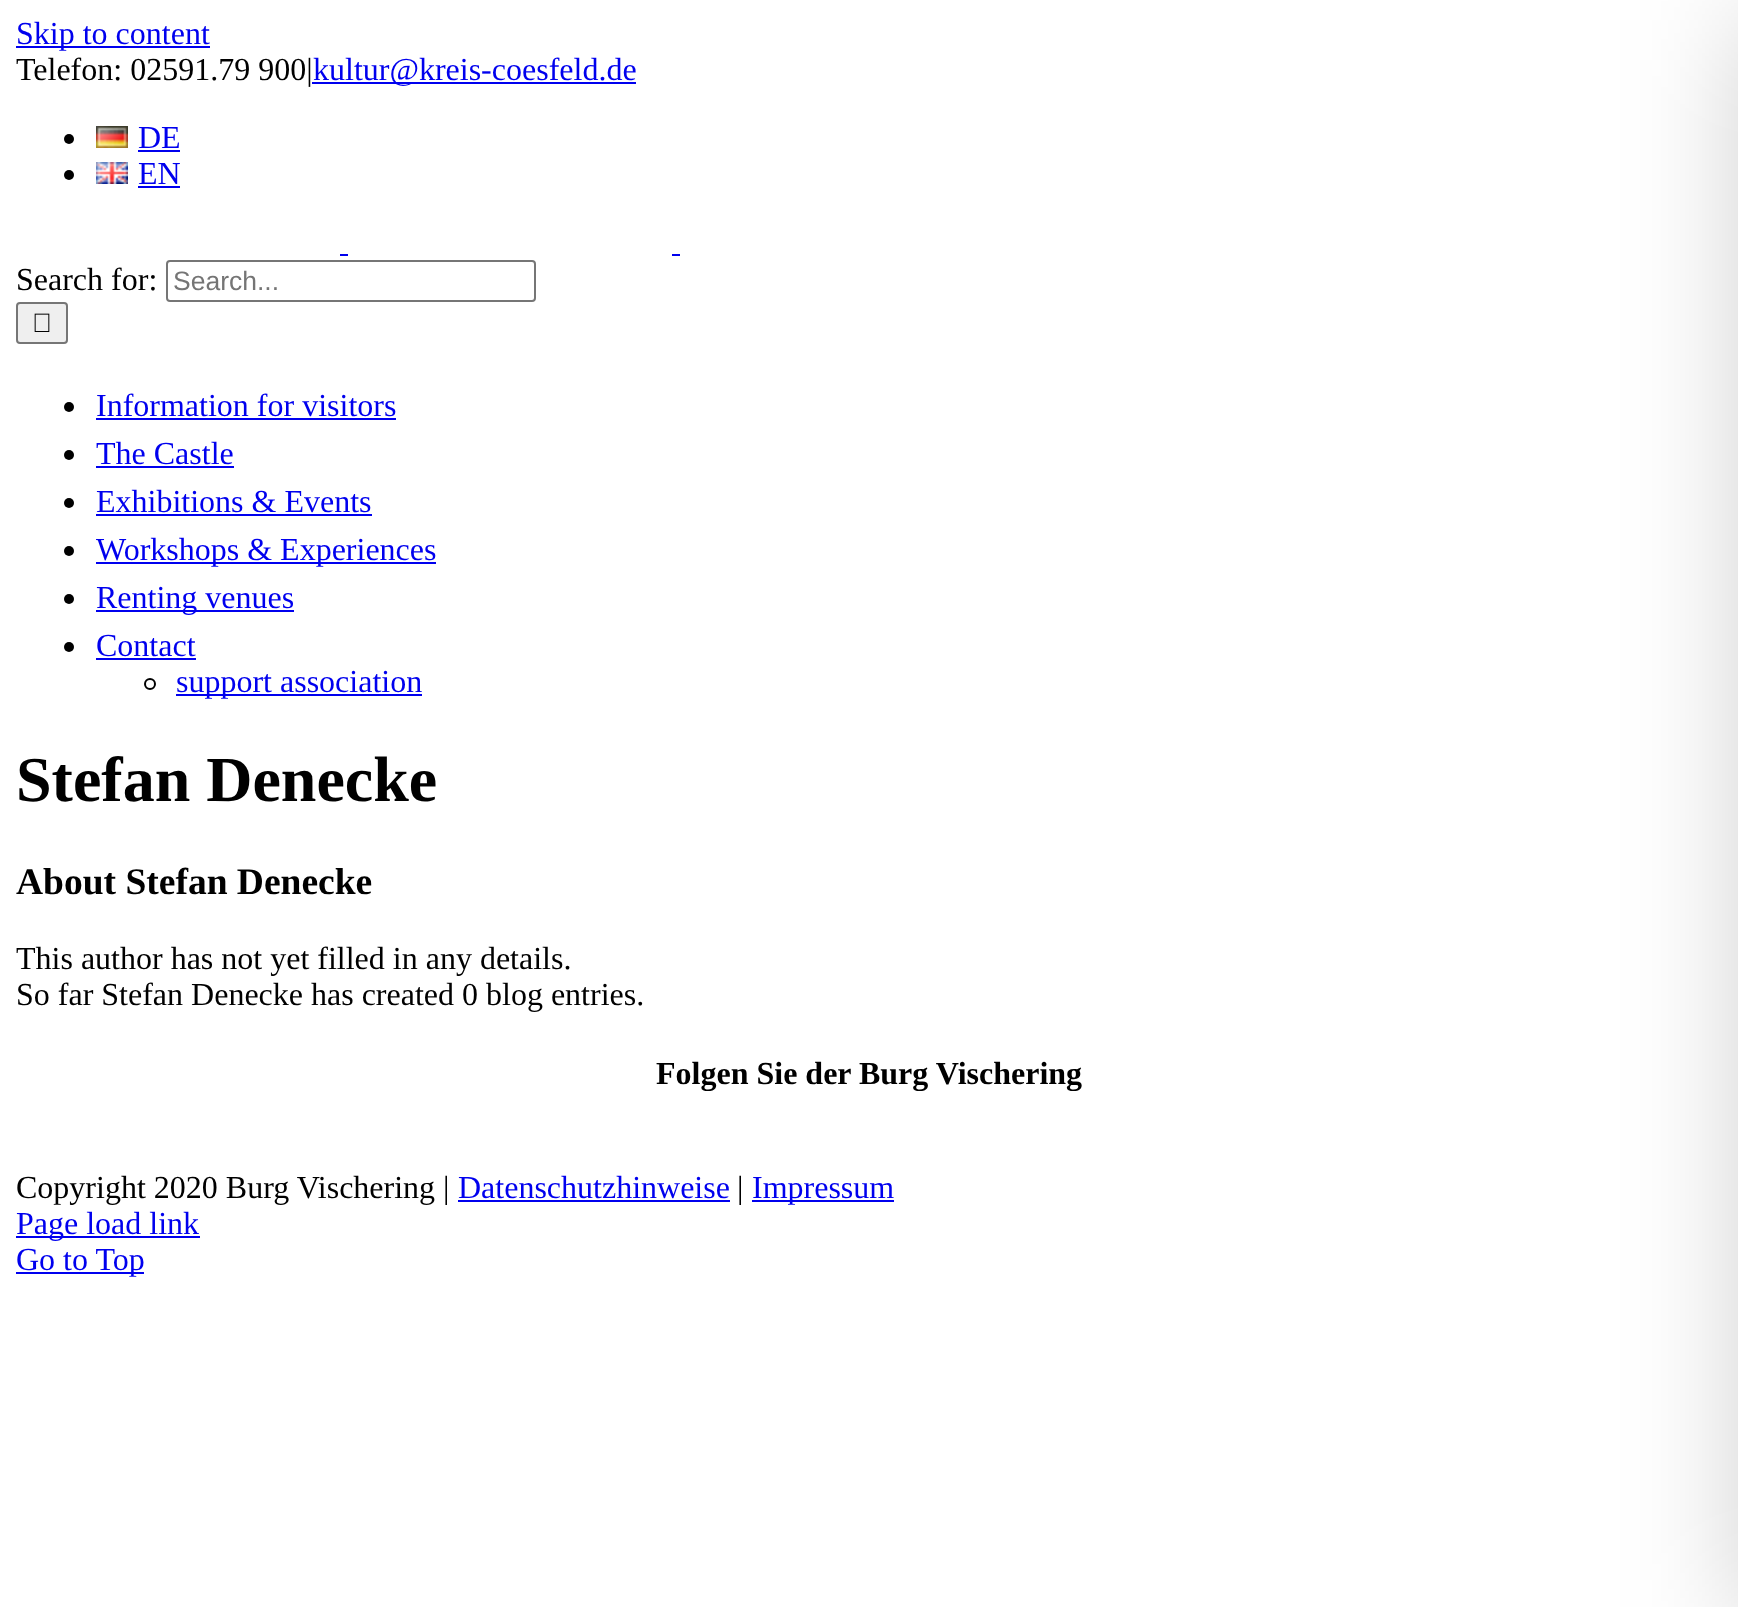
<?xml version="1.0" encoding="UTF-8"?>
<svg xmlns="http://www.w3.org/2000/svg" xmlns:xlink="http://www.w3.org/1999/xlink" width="1738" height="1607">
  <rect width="100%" height="100%" fill="#ffffff" />
  <rect x="16" y="46" width="194" height="2" fill="#0000ee" />
  <rect x="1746" y="20" width="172" height="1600" fill="#000000" fill-opacity="0.2" filter="blur(60px)" />
  <rect x="312" y="82" width="324" height="2" fill="#0000ee" />
  <circle cx="69" cy="139" r="5" fill="#000000" />
  <image x="96" y="126" width="32" height="22" xlink:href="image1.png" />
  <rect x="138" y="150" width="42" height="2" fill="#0000ee" />
  <circle cx="69" cy="175" r="5" fill="#000000" />
  <image x="96" y="162" width="32" height="22" xlink:href="image2.png" />
  <rect x="138" y="186" width="42" height="2" fill="#0000ee" />
  <rect x="340" y="254" width="8" height="2" fill="#0000ee" />
  <rect x="672" y="254" width="8" height="2" fill="#0000ee" />
  <rect x="167" y="261" width="368" height="40" rx="3" fill="none" stroke="#767676" stroke-width="2" />
  <rect x="17" y="303" width="50" height="40" rx="3" fill="#efefef" stroke="#767676" stroke-width="2" />
  <image x="34" y="313" width="16" height="19" xlink:href="image3.png" />
  <circle cx="69" cy="407" r="5" fill="#000000" />
  <rect x="96" y="418" width="300" height="2" fill="#0000ee" />
  <circle cx="69" cy="455" r="5" fill="#000000" />
  <rect x="96" y="466" width="138" height="2" fill="#0000ee" />
  <circle cx="69" cy="503" r="5" fill="#000000" />
  <rect x="96" y="514" width="276" height="2" fill="#0000ee" />
  <circle cx="69" cy="551" r="5" fill="#000000" />
  <rect x="96" y="562" width="340" height="2" fill="#0000ee" />
  <circle cx="69" cy="599" r="5" fill="#000000" />
  <rect x="96" y="610" width="198" height="2" fill="#0000ee" />
  <circle cx="69" cy="647" r="5" fill="#000000" />
  <rect x="96" y="658" width="100" height="2" fill="#0000ee" />
  <circle cx="150" cy="684" r="5" fill="none" stroke="#000000" stroke-width="2" />
  <rect x="176" y="694" width="246" height="2" fill="#0000ee" />
  <rect x="458" y="1200" width="272" height="2" fill="#0000ee" />
  <rect x="752" y="1200" width="142" height="2" fill="#0000ee" />
  <rect x="16" y="1236" width="184" height="2" fill="#0000ee" />
  <rect x="16" y="1272" width="128" height="2" fill="#0000ee" />
  <text x="16" y="44" style="font-family: Liberation Serif; font-size: 32px; fill: #0000ee">Skip to content</text>
  <text x="16" y="80" style="font-family: Liberation Serif; font-size: 32px; fill: #000000">Telefon: 02591.79 900|</text>
  <text x="313" y="80" style="font-family: Liberation Serif; font-size: 32px; fill: #0000ee">kultur@kreis-coesfeld.de</text>
  <text x="138" y="148" style="font-family: Liberation Serif; font-size: 32px; fill: #0000ee">DE</text>
  <text x="138" y="184" style="font-family: Liberation Serif; font-size: 32px; fill: #0000ee">EN</text>
  <text x="16" y="290" style="font-family: Liberation Serif; font-size: 32px; fill: #000000">Search for:</text>
  <text x="173" y="290" style="font-family: Liberation Sans; font-size: 26.5px; fill: #757575">Search...</text>
  <text x="96" y="416" style="font-family: Liberation Serif; font-size: 32px; fill: #0000ee">Information for visitors</text>
  <text x="96" y="464" style="font-family: Liberation Serif; font-size: 32px; fill: #0000ee">The Castle</text>
  <text x="96" y="512" style="font-family: Liberation Serif; font-size: 32px; fill: #0000ee">Exhibitions &amp; Events</text>
  <text x="96" y="560" style="font-family: Liberation Serif; font-size: 32px; fill: #0000ee">Workshops &amp; Experiences</text>
  <text x="96" y="608" style="font-family: Liberation Serif; font-size: 32px; fill: #0000ee">Renting venues</text>
  <text x="96" y="656" style="font-family: Liberation Serif; font-size: 32px; fill: #0000ee">Contact</text>
  <text x="176" y="692" style="font-family: Liberation Serif; font-size: 32px; fill: #0000ee">support association</text>
  <text x="16" y="801" style="font-family: Liberation Serif; font-size: 64px; font-weight: bold; fill: #000000">Stefan Denecke</text>
  <text x="16" y="894" style="font-family: Liberation Serif; font-size: 37.5px; font-weight: bold; fill: #000000">About Stefan Denecke</text>
  <text x="16" y="969" style="font-family: Liberation Serif; font-size: 32px; fill: #000000">This author has not yet filled in any details.</text>
  <text x="16" y="1005" style="font-family: Liberation Serif; font-size: 32px; fill: #000000">So far Stefan Denecke has created 0 blog entries.</text>
  <text x="656" y="1084" style="font-family: Liberation Serif; font-size: 32px; font-weight: bold; fill: #000000">Folgen Sie der Burg Vischering</text>
  <text x="16" y="1198" style="font-family: Liberation Serif; font-size: 32px; fill: #000000">Copyright 2020 Burg Vischering |</text>
  <text x="458" y="1198" style="font-family: Liberation Serif; font-size: 32px; fill: #0000ee">Datenschutzhinweise</text>
  <text x="737" y="1198" style="font-family: Liberation Serif; font-size: 32px; fill: #000000">|</text>
  <text x="752" y="1198" style="font-family: Liberation Serif; font-size: 32px; fill: #0000ee">Impressum</text>
  <text x="16" y="1234" style="font-family: Liberation Serif; font-size: 32px; fill: #0000ee">Page load link</text>
  <text x="16" y="1270" style="font-family: Liberation Serif; font-size: 32px; fill: #0000ee">Go to Top</text>
</svg>
